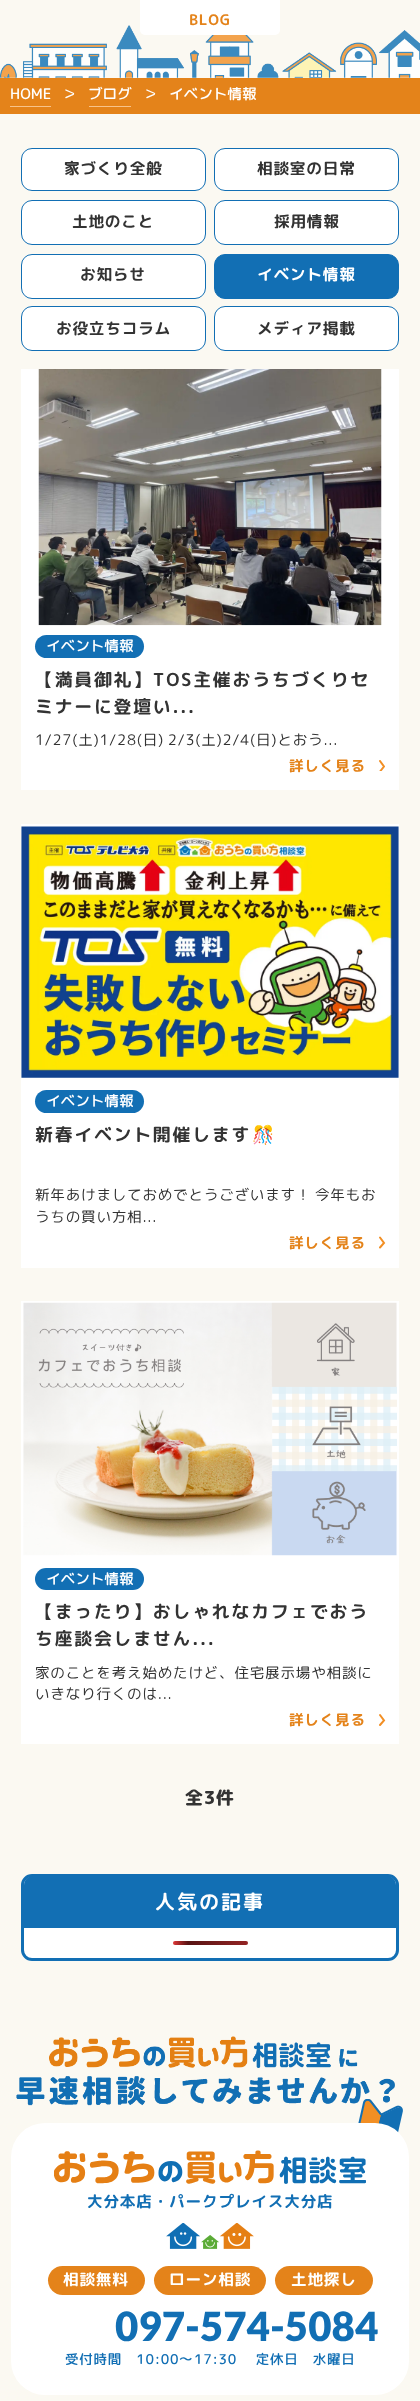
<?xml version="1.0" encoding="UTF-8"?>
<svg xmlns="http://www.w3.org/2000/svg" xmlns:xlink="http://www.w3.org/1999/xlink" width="420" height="2401">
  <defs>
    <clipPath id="clip1"><rect x="379" y="760" width="6" height="11" /></clipPath>
    <linearGradient id="g1" gradientUnits="userSpaceOnUse" x1="173" y1="1943" x2="323" y2="1943"><stop offset="0" stop-color="#dd3737" /><stop offset="0.1" stop-color="#571313" /><stop offset="1" stop-color="#dd3737" /></linearGradient>
  </defs>
  <rect width="100%" height="100%" fill="#fbf9f2" />
  <image x="0" y="25" width="420" height="53" xlink:href="image1.png" />
  <rect x="140" y="-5" width="140" height="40" rx="5" fill="#ffffff" />
  <rect y="78" width="420" height="36" fill="#e4831a" />
  <rect x="10" y="106" width="41" height="1" fill="#f8c38a" />
  <rect x="89" y="106" width="42" height="1" fill="#f8c38a" />
  <rect x="21.5" y="148.5" width="184" height="42" rx="10.5" fill="#ffffff" stroke="#126fb4" />
  <rect x="214.5" y="148.5" width="184" height="42" rx="10.5" fill="#ffffff" stroke="#126fb4" />
  <rect x="21.5" y="200.5" width="184" height="44" rx="10.5" fill="#ffffff" stroke="#126fb4" />
  <rect x="214.5" y="200.5" width="184" height="44" rx="10.5" fill="#ffffff" stroke="#126fb4" />
  <rect x="21.5" y="254.5" width="184" height="44" rx="10.5" fill="#ffffff" stroke="#126fb4" />
  <rect x="214.5" y="254.5" width="184" height="44" rx="10.5" fill="#126fb4" stroke="#126fb4" />
  <rect x="21.5" y="306.5" width="184" height="44" rx="10.5" fill="#ffffff" stroke="#126fb4" />
  <rect x="214.5" y="306.5" width="184" height="44" rx="10.5" fill="#ffffff" stroke="#126fb4" />
  <rect x="21" y="369" width="378" height="421" fill="#ffffff" />
  <image x="38" y="369" width="344" height="257" xlink:href="image2.png" />
  <rect x="35" y="635" width="109" height="23" rx="11.5" fill="#126fb4" />
  <g clip-path="url(#clip1)">
    <path d="M 380 761 l 4 5.5 l -4 5" fill="none" stroke="#f28f24" stroke-width="2" stroke-linecap="round" />
  </g>
  <rect x="21" y="824" width="378" height="444" fill="#ffffff" />
  <image x="21" y="826" width="378" height="252" xlink:href="image3.png" />
  <rect x="35" y="1090" width="109" height="23" rx="11.5" fill="#126fb4" />
  <path d="M 380 1237.5 l 4 5.5 l -4 4.5" fill="none" stroke="#f28f24" stroke-width="2" stroke-linecap="round" />
  <rect x="21" y="1301" width="378" height="443" fill="#ffffff" />
  <image x="23" y="1302" width="374" height="254" xlink:href="image4.png" />
  <rect x="35" y="1568" width="109" height="22" rx="11" fill="#126fb4" />
  <path d="M 380 1715 l 4 5.5 l -4 4.5" fill="none" stroke="#f28f24" stroke-width="2" stroke-linecap="round" />
  <rect x="22.5" y="1875.5" width="375" height="84" rx="9.5" fill="#ffffff" stroke="#126fb4" stroke-width="3" />
  <path d="M 33 1876 h 354 c 5 0 9 4 9 9 v 43 h -372 v -43 c 0 -5 4 -9 9 -9 z" fill="#126fb4" />
  <rect x="173" y="1941" width="75" height="4" rx="2" fill="url(#g1)" />
  <image x="16" y="2036" width="379" height="70" xlink:href="image5.png" />
  <image x="358" y="2099" width="45" height="34" xlink:href="image6.png" />
  <rect x="11" y="2123" width="398" height="272" rx="34" fill="#ffffff" />
  <image x="54" y="2150" width="312" height="34" xlink:href="image7.png" />
  <image x="166" y="2223" width="88" height="26" xlink:href="image8.png" />
  <rect x="48" y="2266" width="97" height="29" rx="14.5" fill="#e4831a" />
  <rect x="154" y="2266" width="112" height="29" rx="14.5" fill="#e4831a" />
  <rect x="275" y="2266" width="98" height="29" rx="14.5" fill="#e4831a" />
  <text x="189" y="25" style="font-family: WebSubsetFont; font-size: 14.6px; font-weight: bold; letter-spacing: 0.75px; fill: #e4831a">BLOG</text>
  <text x="10" y="99" style="font-family: WebSubsetFont; font-size: 14.6px; font-weight: 500; fill: #ffffff">HOME</text>
  <text x="62" y="99" style="font-family: WebSubsetFont; font-size: 14.6px; font-weight: 500; fill: #ffffff">＞</text>
  <text x="88" y="99" style="font-family: WebSubsetFont; font-size: 14.6px; font-weight: 500; fill: #ffffff">ブログ</text>
  <text x="143" y="99" style="font-family: WebSubsetFont; font-size: 14.6px; font-weight: 500; fill: #ffffff">＞</text>
  <text x="169" y="99" style="font-family: WebSubsetFont; font-size: 14.6px; font-weight: 500; fill: #ffffff">イベント情報</text>
  <text x="64" y="174" style="font-family: WebSubsetFont; font-size: 15.7px; font-weight: bold; letter-spacing: 0.75px; fill: #333333">家づくり全般</text>
  <text x="257" y="174" style="font-family: WebSubsetFont; font-size: 15.7px; font-weight: bold; letter-spacing: 0.75px; fill: #333333">相談室の日常</text>
  <text x="72" y="227" style="font-family: WebSubsetFont; font-size: 15.7px; font-weight: bold; letter-spacing: 0.75px; fill: #333333">土地のこと</text>
  <text x="274" y="227" style="font-family: WebSubsetFont; font-size: 15.7px; font-weight: bold; letter-spacing: 0.75px; fill: #333333">採用情報</text>
  <text x="80" y="280" style="font-family: WebSubsetFont; font-size: 15.7px; font-weight: bold; letter-spacing: 0.75px; fill: #333333">お知らせ</text>
  <text x="257" y="280" style="font-family: WebSubsetFont; font-size: 15.7px; font-weight: bold; letter-spacing: 0.75px; fill: #ffffff">イベント情報</text>
  <text x="56" y="334" style="font-family: WebSubsetFont; font-size: 15.7px; font-weight: bold; letter-spacing: 0.75px; fill: #333333">お役立ちコラム</text>
  <text x="257" y="334" style="font-family: WebSubsetFont; font-size: 15.7px; font-weight: bold; letter-spacing: 0.75px; fill: #333333">メディア掲載</text>
  <text x="46" y="651" style="font-family: WebSubsetFont; font-size: 14.6px; font-weight: 500; fill: #ffffff">イベント情報</text>
  <text x="35" y="686" style="font-family: WebSubsetFont; font-size: 17.9px; font-weight: bold; letter-spacing: 1.75px; fill: #333333">【満員御礼】TOS主催おうちづくりセ</text>
  <text x="35" y="713" style="font-family: WebSubsetFont; font-size: 17.9px; font-weight: bold; letter-spacing: 1.75px; fill: #333333">ミナーに登壇い...</text>
  <text x="35" y="745" word-spacing="-1" style="font-family: WebSubsetFont; font-size: 14.6px; letter-spacing: 0.75px; fill: #333333">1/27(土)1/28(日) 2/3(土)2/4(日)とおう...</text>
  <text x="289" y="771" style="font-family: WebSubsetFont; font-size: 14.6px; font-weight: bold; letter-spacing: 0.75px; fill: #e4831a">詳しく見る</text>
  <text x="46" y="1106" style="font-family: WebSubsetFont; font-size: 14.6px; font-weight: 500; fill: #ffffff">イベント情報</text>
  <text x="35" y="1141" style="font-family: WebSubsetFont; font-size: 17.9px; font-weight: bold; letter-spacing: 1.75px; fill: #333333">新春イベント開催します</text>
  <text x="252" y="1141" style="font-family: Noto Color Emoji; font-size: 17.9px; font-weight: bold; letter-spacing: 1.75px; fill: #333333">🎊</text>
  <text x="35" y="1200" word-spacing="-1" style="font-family: WebSubsetFont; font-size: 14.6px; letter-spacing: 0.75px; fill: #333333">新年あけましておめでとうございます！ 今年もお</text>
  <text x="35" y="1222" style="font-family: WebSubsetFont; font-size: 14.6px; letter-spacing: 0.75px; fill: #333333">うちの買い方相...</text>
  <text x="289" y="1248" style="font-family: WebSubsetFont; font-size: 14.6px; font-weight: bold; letter-spacing: 0.75px; fill: #e4831a">詳しく見る</text>
  <text x="46" y="1584" style="font-family: WebSubsetFont; font-size: 14.6px; font-weight: 500; fill: #ffffff">イベント情報</text>
  <text x="35" y="1618" style="font-family: WebSubsetFont; font-size: 17.9px; font-weight: bold; letter-spacing: 1.75px; fill: #333333">【まったり】おしゃれなカフェでおう</text>
  <text x="35" y="1645" style="font-family: WebSubsetFont; font-size: 17.9px; font-weight: bold; letter-spacing: 1.75px; fill: #333333">ち座談会しません...</text>
  <text x="35" y="1678" style="font-family: WebSubsetFont; font-size: 14.6px; letter-spacing: 0.75px; fill: #333333">家のことを考え始めたけど、住宅展示場や相談に</text>
  <text x="35" y="1699" style="font-family: WebSubsetFont; font-size: 14.6px; letter-spacing: 0.75px; fill: #333333">いきなり行くのは...</text>
  <text x="289" y="1725" style="font-family: WebSubsetFont; font-size: 14.6px; font-weight: bold; letter-spacing: 0.75px; fill: #e4831a">詳しく見る</text>
  <text x="185" y="1804" style="font-family: WebSubsetFont; font-size: 17.9px; font-weight: 800; letter-spacing: 0.75px; fill: #333333">全3件</text>
  <text x="155" y="1909" style="font-family: WebSubsetFont; font-size: 20px; font-weight: bold; letter-spacing: 2px; fill: #ffffff">人気の記事</text>
  <text x="87" y="2207" style="font-family: WebSubsetFont; font-size: 15.7px; font-weight: bold; letter-spacing: 0.75px; fill: #126fb4">大分本店・パークプレイス大分店</text>
  <text x="63" y="2285" style="font-family: WebSubsetFont; font-size: 15.7px; font-weight: bold; letter-spacing: 0.75px; fill: #ffffff">相談無料</text>
  <text x="169" y="2285" style="font-family: WebSubsetFont; font-size: 15.7px; font-weight: bold; letter-spacing: 0.75px; fill: #ffffff">ローン相談</text>
  <text x="291" y="2285" style="font-family: WebSubsetFont; font-size: 15.7px; font-weight: bold; letter-spacing: 0.75px; fill: #ffffff">土地探し</text>
  <text x="115" y="2341" style="font-family: Lato; font-size: 40.25px; font-weight: 900; fill: #126fb4">097-574-5084</text>
  <text x="65" y="2364" style="font-family: WebSubsetFont; font-size: 13.5px; font-weight: 500; letter-spacing: 0.75px; fill: #126fb4">受付時間　10:00</text>
  <text x="179" y="2364" style="font-family: WenQuanYi Zen Hei; font-size: 13.5px; font-weight: 500; letter-spacing: 0.75px; fill: #126fb4">〜</text>
  <text x="194" y="2364" style="font-family: WebSubsetFont; font-size: 13.5px; font-weight: 500; letter-spacing: 0.75px; fill: #126fb4">17:30 　定休日　水曜日</text>
</svg>
